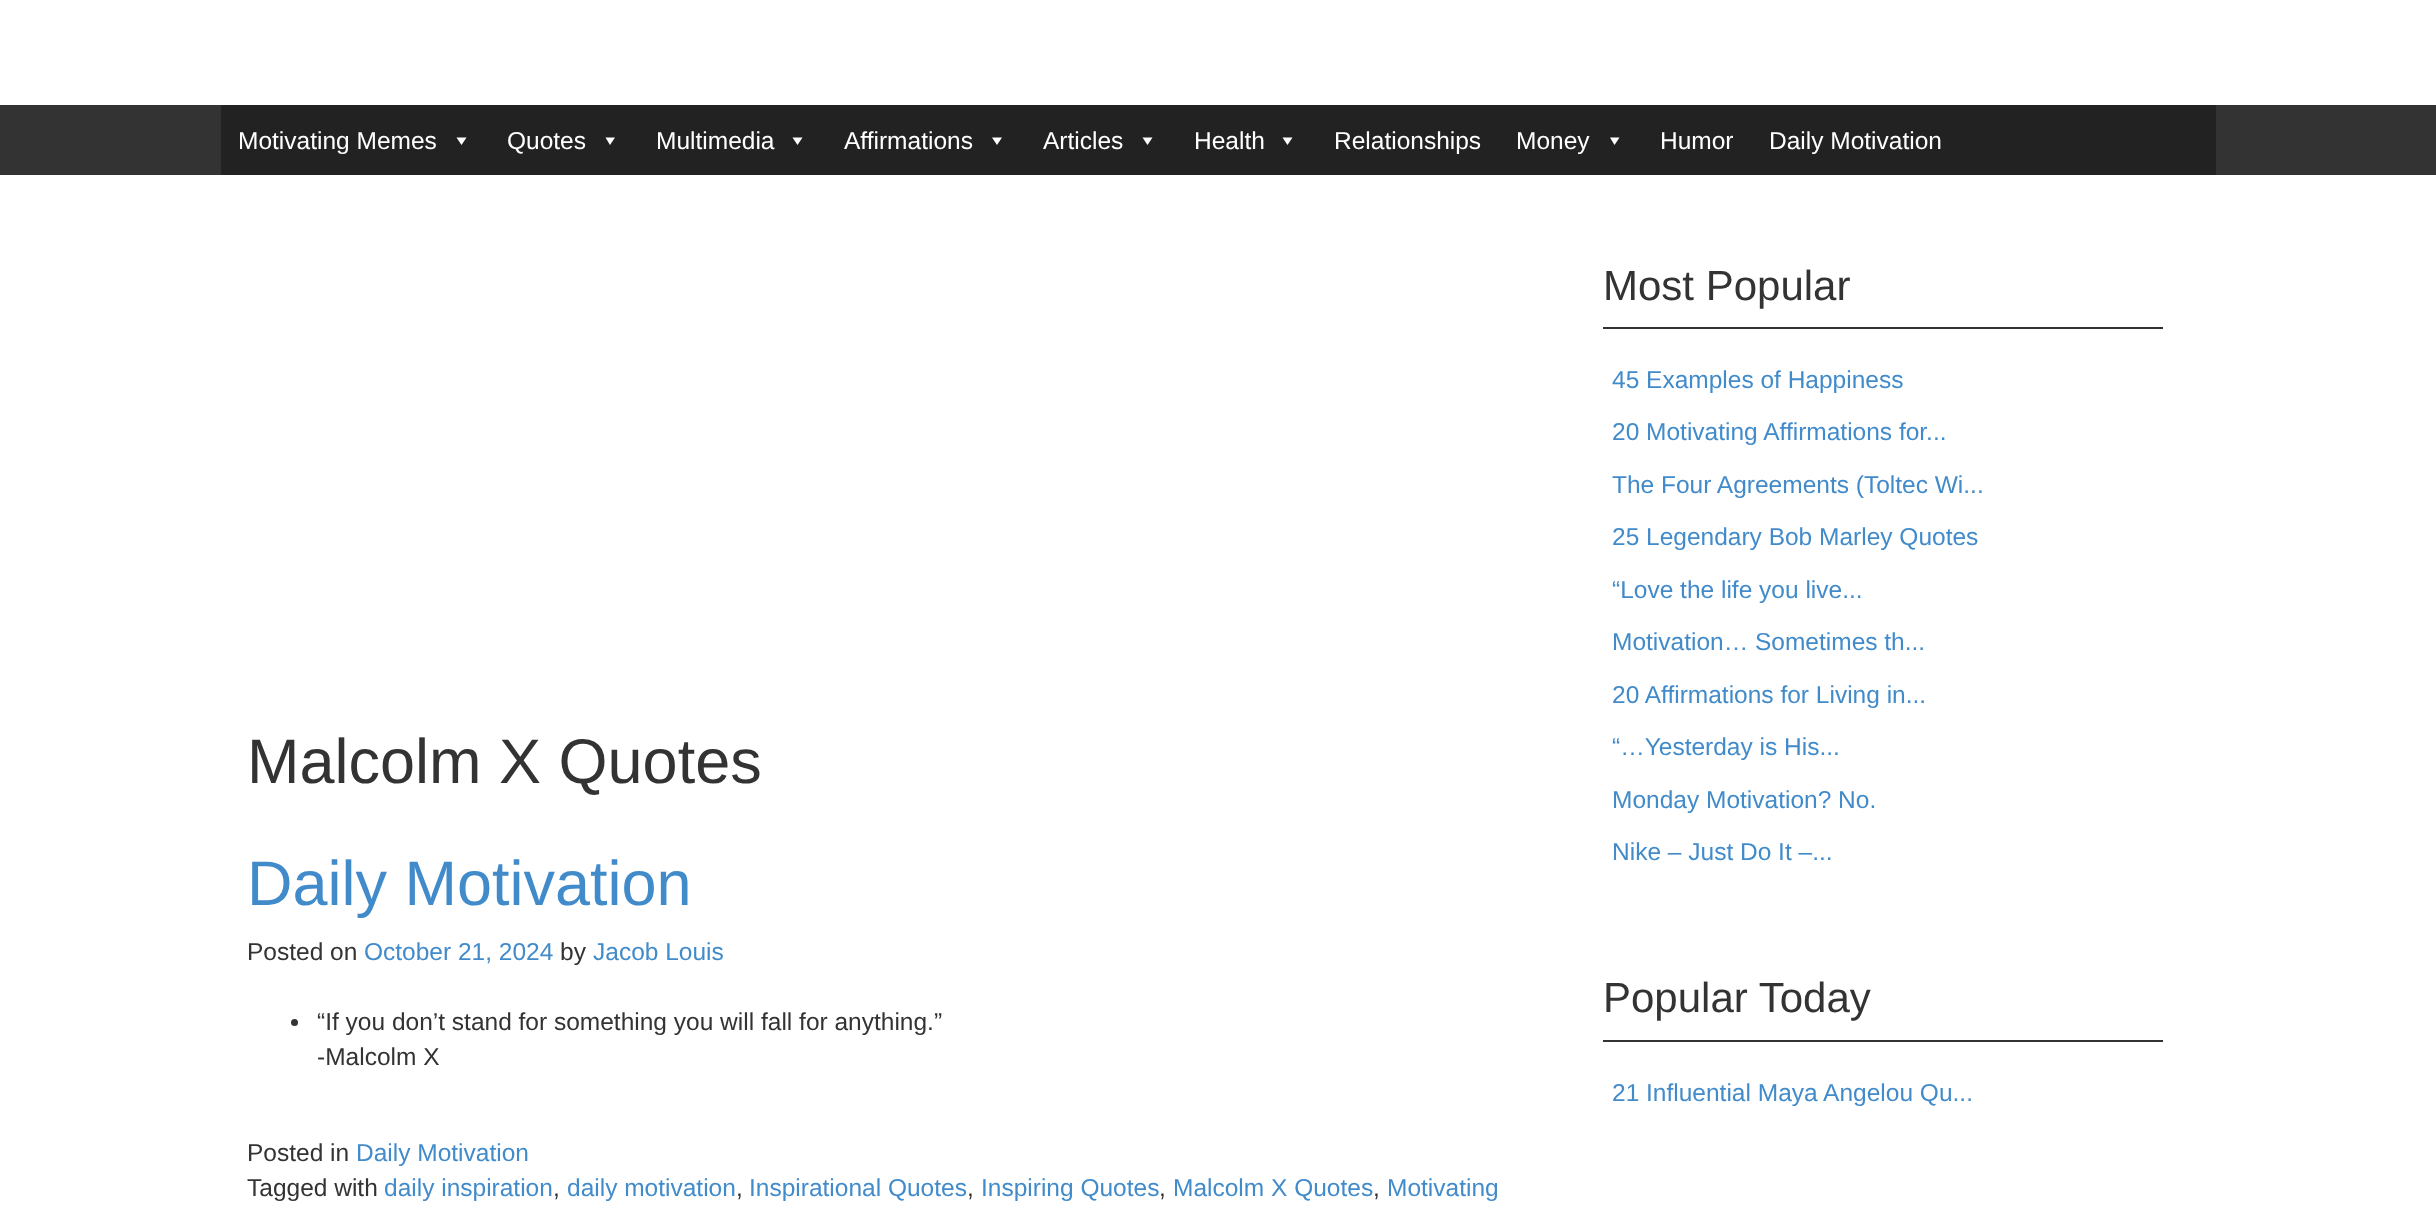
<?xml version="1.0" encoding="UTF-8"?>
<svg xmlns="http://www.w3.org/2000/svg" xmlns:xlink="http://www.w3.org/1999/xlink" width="2436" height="1208">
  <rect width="100%" height="100%" fill="#ffffff" />
  <rect y="105" width="2436" height="70" fill="#333333" />
  <rect x="221" y="105" width="1995" height="70" fill="#222222" />
  <path d="M 466.5 137.5 l -5 7.5 l -5 -7.5 z" fill="#ffffff" />
  <path d="M 615 137.5 l -5 7.5 l -4.5 -7.5 z" fill="#ffffff" />
  <path d="M 802.5 137.5 l -5 7.5 l -5 -7.5 z" fill="#ffffff" />
  <path d="M 1002 137.5 l -5 7.5 l -5 -7.5 z" fill="#ffffff" />
  <path d="M 1152.5 137.5 l -5 7.5 l -5 -7.5 z" fill="#ffffff" />
  <path d="M 1292.5 137.5 l -5 7.5 l -5 -7.5 z" fill="#ffffff" />
  <path d="M 1619.5 137.5 l -5 7.5 l -4.5 -7.5 z" fill="#ffffff" />
  <circle cx="294.5" cy="1022.5" r="3.5" fill="#333333" />
  <rect x="1603" y="327" width="560" height="2" fill="#333333" />
  <rect x="1603" y="1040" width="560" height="2" fill="#333333" />
  <text x="238" y="149" style="font-family: Liberation Sans; font-size: 24.5px; fill: #ffffff">Motivating Memes</text>
  <text x="507" y="149" style="font-family: Liberation Sans; font-size: 24.5px; fill: #ffffff">Quotes</text>
  <text x="656" y="149" style="font-family: Liberation Sans; font-size: 24.5px; fill: #ffffff">Multimedia</text>
  <text x="844" y="149" style="font-family: Liberation Sans; font-size: 24.5px; fill: #ffffff">Affirmations</text>
  <text x="1043" y="149" style="font-family: Liberation Sans; font-size: 24.5px; fill: #ffffff">Articles</text>
  <text x="1194" y="149" style="font-family: Liberation Sans; font-size: 24.5px; fill: #ffffff">Health</text>
  <text x="1334" y="149" style="font-family: Liberation Sans; font-size: 24.5px; fill: #ffffff">Relationships</text>
  <text x="1516" y="149" style="font-family: Liberation Sans; font-size: 24.5px; fill: #ffffff">Money</text>
  <text x="1660" y="149" style="font-family: Liberation Sans; font-size: 24.5px; fill: #ffffff">Humor</text>
  <text x="1769" y="149" style="font-family: Liberation Sans; font-size: 24.5px; fill: #ffffff">Daily Motivation</text>
  <text x="247" y="783" style="font-family: Liberation Sans; font-size: 63px; fill: #333333">Malcolm X Quotes</text>
  <text x="247" y="905" style="font-family: Liberation Sans; font-size: 63px; fill: #428bca">Daily Motivation</text>
  <text x="247" y="960" style="font-family: Liberation Sans; font-size: 24.5px; fill: #333333">Posted on</text>
  <text x="364" y="960" style="font-family: Liberation Sans; font-size: 24.5px; fill: #428bca">October 21, 2024</text>
  <text x="560" y="960" style="font-family: Liberation Sans; font-size: 24.5px; fill: #333333">by</text>
  <text x="593" y="960" style="font-family: Liberation Sans; font-size: 24.5px; fill: #428bca">Jacob Louis</text>
  <text x="317" y="1030" style="font-family: Liberation Sans; font-size: 24.5px; fill: #333333">“If you don’t stand for something you will fall for anything.”</text>
  <text x="317" y="1065" style="font-family: Liberation Sans; font-size: 24.5px; fill: #333333">-Malcolm X</text>
  <text x="247" y="1161" style="font-family: Liberation Sans; font-size: 24.5px; fill: #333333">Posted in</text>
  <text x="356" y="1161" style="font-family: Liberation Sans; font-size: 24.5px; fill: #428bca">Daily Motivation</text>
  <text x="247" y="1196" style="font-family: Liberation Sans; font-size: 24.5px; fill: #333333">Tagged with</text>
  <text x="384" y="1196" style="font-family: Liberation Sans; font-size: 24.5px; fill: #428bca">daily inspiration</text>
  <text x="553" y="1196" style="font-family: Liberation Sans; font-size: 24.5px; fill: #333333">,</text>
  <text x="567" y="1196" style="font-family: Liberation Sans; font-size: 24.5px; fill: #428bca">daily motivation</text>
  <text x="736" y="1196" style="font-family: Liberation Sans; font-size: 24.5px; fill: #333333">,</text>
  <text x="749" y="1196" style="font-family: Liberation Sans; font-size: 24.5px; fill: #428bca">Inspirational Quotes</text>
  <text x="967" y="1196" style="font-family: Liberation Sans; font-size: 24.5px; fill: #333333">,</text>
  <text x="981" y="1196" style="font-family: Liberation Sans; font-size: 24.5px; fill: #428bca">Inspiring Quotes</text>
  <text x="1159" y="1196" style="font-family: Liberation Sans; font-size: 24.5px; fill: #333333">,</text>
  <text x="1173" y="1196" style="font-family: Liberation Sans; font-size: 24.5px; fill: #428bca">Malcolm X Quotes</text>
  <text x="1373" y="1196" style="font-family: Liberation Sans; font-size: 24.5px; fill: #333333">,</text>
  <text x="1387" y="1196" style="font-family: Liberation Sans; font-size: 24.5px; fill: #428bca">Motivating</text>
  <text x="1603" y="300" style="font-family: Liberation Sans; font-size: 42px; fill: #333333">Most Popular</text>
  <text x="1612" y="388" style="font-family: Liberation Sans; font-size: 24.5px; fill: #428bca">45 Examples of Happiness</text>
  <text x="1612" y="440" style="font-family: Liberation Sans; font-size: 24.5px; fill: #428bca">20 Motivating Affirmations for...</text>
  <text x="1612" y="493" style="font-family: Liberation Sans; font-size: 24.5px; fill: #428bca">The Four Agreements (Toltec Wi...</text>
  <text x="1612" y="545" style="font-family: Liberation Sans; font-size: 24.5px; fill: #428bca">25 Legendary Bob Marley Quotes</text>
  <text x="1612" y="598" style="font-family: Liberation Sans; font-size: 24.5px; fill: #428bca">“Love the life you live...</text>
  <text x="1612" y="650" style="font-family: Liberation Sans; font-size: 24.5px; fill: #428bca">Motivation… Sometimes th...</text>
  <text x="1612" y="703" style="font-family: Liberation Sans; font-size: 24.5px; fill: #428bca">20 Affirmations for Living in...</text>
  <text x="1612" y="755" style="font-family: Liberation Sans; font-size: 24.5px; fill: #428bca">“…Yesterday is His...</text>
  <text x="1612" y="808" style="font-family: Liberation Sans; font-size: 24.5px; fill: #428bca">Monday Motivation? No.</text>
  <text x="1612" y="860" style="font-family: Liberation Sans; font-size: 24.5px; fill: #428bca">Nike – Just Do It –...</text>
  <text x="1603" y="1012" style="font-family: Liberation Sans; font-size: 42px; fill: #333333">Popular Today</text>
  <text x="1612" y="1101" style="font-family: Liberation Sans; font-size: 24.5px; fill: #428bca">21 Influential Maya Angelou Qu...</text>
</svg>
